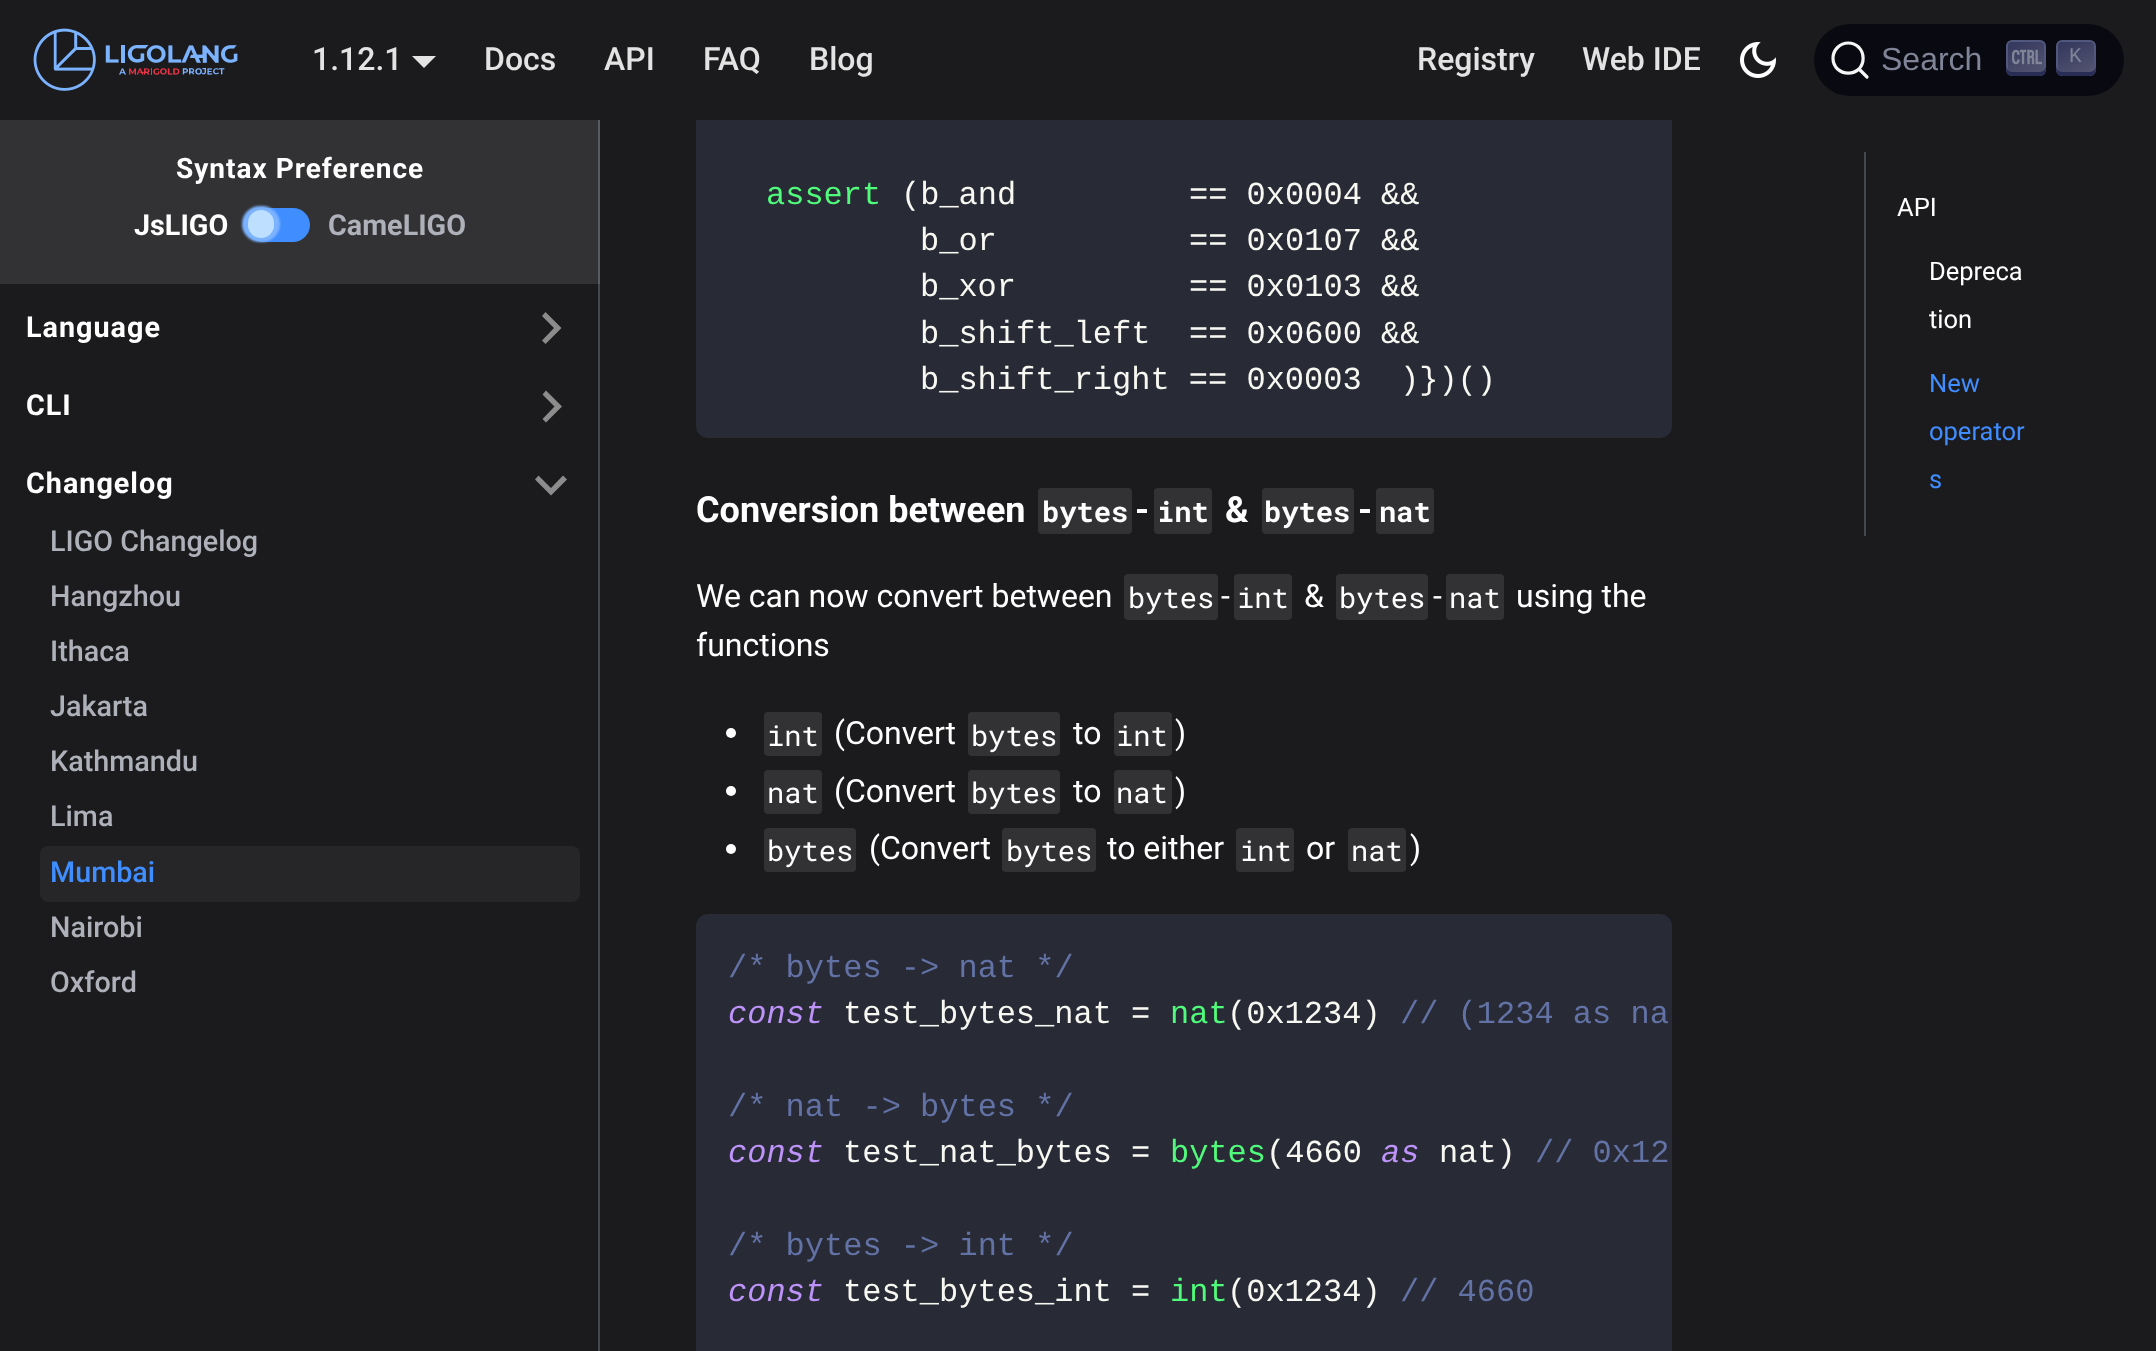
<?xml version="1.0" encoding="UTF-8"?>
<svg xmlns="http://www.w3.org/2000/svg" xmlns:xlink="http://www.w3.org/1999/xlink" width="2156" height="1351">
  <defs>
    <linearGradient id="g1" gradientUnits="userSpaceOnUse" x1="2037" y1="80" x2="2015" y2="36"><stop offset="0" stop-color="#565872" /><stop offset="1" stop-color="#31355b" /></linearGradient>
    <linearGradient id="g2" gradientUnits="userSpaceOnUse" x1="2087" y1="80" x2="2065" y2="36"><stop offset="0" stop-color="#565872" /><stop offset="1" stop-color="#31355b" /></linearGradient>
  </defs>
  <rect width="100%" height="100%" fill="#1b1b1d" />
  <rect y="120" width="598" height="164" fill="#323234" />
  <rect x="696" y="-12" width="976" height="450" rx="12" fill="#282a36" />
  <rect x="696" width="976" height="120" fill="#1b1b1d" />
  <image x="33" y="28" width="205" height="63" xlink:href="image1.png" />
  <path d="M 412 56 h 24 l -12 12 z" fill="#e3e3e3" />
  <image x="1740" y="42" width="36" height="36" xlink:href="image2.png" />
  <rect x="1814" y="24" width="310" height="72" rx="36" fill="#090a11" />
  <path d="M 1859 69 l 8 8 l -8 -8 c -6 5.5 -15.5 5.5 -21.5 0 c -6 -6 -6 -15.5 0 -21.5 c 6 -6 15.5 -6 21.5 0 c 5.5 6 5.5 15.5 0 21.5 z" fill="none" stroke="#f5f6f7" stroke-width="3.2" stroke-linecap="round" stroke-linejoin="round" />
  <rect x="2007" y="41" width="38" height="34" rx="5" fill="url(#g1)" stroke="#51577d" stroke-width="2" />
  <path d="M 2006 66 c 0 9 2 10 11 10 h 18 c 9 0 11 -1 11 -10 c 0 3 -3 6 -6 6 h -28 c -3 0 -6 -3 -6 -6 z" fill="#282d55" />
  <image x="2012" y="49" width="30" height="16" xlink:href="image3.png" />
  <rect x="2057" y="41" width="38" height="34" rx="5" fill="url(#g2)" stroke="#51577d" stroke-width="2" />
  <path d="M 2056 66 c 0 9 2 10 11 10 h 18 c 9 0 11 -1 11 -10 c 0 3 -3 6 -6 6 h -28 c -3 0 -6 -3 -6 -6 z" fill="#282d55" />
  <rect x="598" y="284" width="2" height="1067" fill="#444950" />
  <rect x="598" y="120" width="2" height="164" fill="#575b62" />
  <rect x="246" y="208" width="64" height="34" rx="17" fill="#408dff" />
  <rect x="242" y="206" width="38" height="36" rx="18" fill="#7cb3ff" filter="blur(1px)" />
  <rect x="248" y="210" width="26" height="28" rx="13" fill="#bedfff" />
  <path d="M 542 316 l 12 12 l -12 12.5 l 3.5 3.5 l 16 -16 l -16 -16 z" fill="#8c8c8d" />
  <path d="M 542.5 394.5 l 12 12 l -12 12.5 l 3.5 3.5 l 16 -16 l -16 -16 z" fill="#8c8c8d" />
  <path d="M 563 475.5 l -12 12.5 l -12.5 -12.5 l -3.5 4 l 16 16 l 16 -16 z" fill="#8c8c8d" />
  <rect x="40" y="846" width="540" height="56" rx="8" fill="#262628" />
  <rect x="1038" y="488" width="94" height="46" rx="4" fill="#323234" />
  <rect x="1154" y="488" width="58" height="46" rx="4" fill="#323234" />
  <rect x="1262" y="488" width="92" height="46" rx="4" fill="#323234" />
  <rect x="1376" y="488" width="58" height="46" rx="4" fill="#323234" />
  <rect x="1124" y="574" width="94" height="46" rx="4" fill="#323234" />
  <rect x="1234" y="574" width="58" height="46" rx="4" fill="#323234" />
  <rect x="1336" y="574" width="92" height="46" rx="4" fill="#323234" />
  <rect x="1446" y="574" width="58" height="46" rx="4" fill="#323234" />
  <circle cx="731" cy="733" r="5" fill="#ffffff" />
  <rect x="764" y="712" width="58" height="44" rx="4" fill="#323234" />
  <rect x="968" y="712" width="92" height="44" rx="4" fill="#323234" />
  <rect x="1114" y="712" width="58" height="44" rx="4" fill="#323234" />
  <circle cx="731" cy="791" r="5" fill="#ffffff" />
  <rect x="764" y="770" width="58" height="44" rx="4" fill="#323234" />
  <rect x="968" y="770" width="92" height="44" rx="4" fill="#323234" />
  <rect x="1114" y="770" width="58" height="44" rx="4" fill="#323234" />
  <circle cx="731" cy="849" r="5" fill="#ffffff" />
  <rect x="764" y="828" width="92" height="44" rx="4" fill="#323234" />
  <rect x="1002" y="828" width="94" height="44" rx="4" fill="#323234" />
  <rect x="1236" y="828" width="58" height="44" rx="4" fill="#323234" />
  <rect x="1348" y="828" width="58" height="44" rx="4" fill="#323234" />
  <rect x="696" y="914" width="976" height="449" rx="12" fill="#282a36" />
  <rect x="1864" y="152" width="2" height="384" fill="#444950" />
  <text x="312" y="70" style="font-family: Roboto; font-size: 32px; font-weight: 500; fill: #e3e3e3">1.12.1</text>
  <text x="484" y="70" style="font-family: Roboto; font-size: 32px; font-weight: 500; fill: #e3e3e3">Docs</text>
  <text x="604" y="70" style="font-family: Roboto; font-size: 32px; font-weight: 500; fill: #e3e3e3">API</text>
  <text x="703" y="70" style="font-family: Roboto; font-size: 32px; font-weight: 500; fill: #e3e3e3">FAQ</text>
  <text x="809" y="70" style="font-family: Roboto; font-size: 32px; font-weight: 500; fill: #e3e3e3">Blog</text>
  <text x="1417" y="70" style="font-family: Roboto; font-size: 32px; font-weight: 500; fill: #e3e3e3">Registry</text>
  <text x="1582" y="70" style="font-family: Roboto; font-size: 32px; font-weight: 500; fill: #e3e3e3">Web IDE</text>
  <text x="1881" y="70" style="font-family: Liberation Sans; font-size: 32px; fill: #7f8497">Search</text>
  <text x="2069" y="62" style="font-family: Liberation Mono; font-size: 21px; fill: #7f8497">K</text>
  <text x="176" y="178" style="font-family: Roboto; font-size: 28px; font-weight: bold; letter-spacing: 1px; fill: #ffffff">Syntax Preference</text>
  <text x="134" y="235" style="font-family: Roboto; font-size: 28.75px; font-weight: bold; fill: #ffffff">JsLIGO</text>
  <text x="328" y="235" style="font-family: Roboto; font-size: 28.75px; font-weight: bold; fill: #aeb1b9">CameLIGO</text>
  <text x="26" y="337" style="font-family: Roboto; font-size: 28.75px; font-weight: bold; letter-spacing: 1px; fill: #ffffff">Language</text>
  <text x="26" y="415" style="font-family: Roboto; font-size: 28.75px; font-weight: bold; letter-spacing: 1px; fill: #ffffff">CLI</text>
  <text x="26" y="493" style="font-family: Roboto; font-size: 28.75px; font-weight: bold; letter-spacing: 1px; fill: #ffffff">Changelog</text>
  <text x="50" y="551" style="font-family: Roboto; font-size: 28.75px; font-weight: 500; fill: #aeb1b9">LIGO Changelog</text>
  <text x="50" y="606" style="font-family: Roboto; font-size: 28.75px; font-weight: 500; fill: #aeb1b9">Hangzhou</text>
  <text x="50" y="661" style="font-family: Roboto; font-size: 28.75px; font-weight: 500; fill: #aeb1b9">Ithaca</text>
  <text x="50" y="716" style="font-family: Roboto; font-size: 28.75px; font-weight: 500; fill: #aeb1b9">Jakarta</text>
  <text x="50" y="771" style="font-family: Roboto; font-size: 28.75px; font-weight: 500; fill: #aeb1b9">Kathmandu</text>
  <text x="50" y="826" style="font-family: Roboto; font-size: 28.75px; font-weight: 500; fill: #aeb1b9">Lima</text>
  <text x="50" y="882" style="font-family: Roboto; font-size: 28.75px; font-weight: 500; fill: #408dff">Mumbai</text>
  <text x="50" y="937" style="font-family: Roboto; font-size: 28.75px; font-weight: 500; fill: #aeb1b9">Nairobi</text>
  <text x="50" y="992" style="font-family: Roboto; font-size: 28.75px; font-weight: 500; fill: #aeb1b9">Oxford</text>
  <text x="766" y="204" style="font-family: Liberation Mono; font-size: 32px; fill: #50fa7b">assert</text>
  <text x="901" y="204" style="font-family: Liberation Mono; font-size: 32px; fill: #f8f8f2">(b_and</text>
  <text x="1189" y="204" style="font-family: Liberation Mono; font-size: 32px; fill: #f8f8f2">== 0x0004 &amp;&amp;</text>
  <text x="920" y="250" style="font-family: Liberation Mono; font-size: 32px; fill: #f8f8f2">b_or</text>
  <text x="1189" y="250" style="font-family: Liberation Mono; font-size: 32px; fill: #f8f8f2">== 0x0107 &amp;&amp;</text>
  <text x="920" y="296" style="font-family: Liberation Mono; font-size: 32px; fill: #f8f8f2">b_xor</text>
  <text x="1189" y="296" style="font-family: Liberation Mono; font-size: 32px; fill: #f8f8f2">== 0x0103 &amp;&amp;</text>
  <text x="920" y="343" style="font-family: Liberation Mono; font-size: 32px; fill: #f8f8f2">b_shift_left</text>
  <text x="1189" y="343" style="font-family: Liberation Mono; font-size: 32px; fill: #f8f8f2">== 0x0600 &amp;&amp;</text>
  <text x="920" y="389" style="font-family: Liberation Mono; font-size: 32px; fill: #f8f8f2">b_shift_right == 0x0003</text>
  <text x="1400" y="389" style="font-family: Liberation Mono; font-size: 32px; fill: #f8f8f2">)})()</text>
  <text x="696" y="522" style="font-family: Roboto; font-size: 36px; font-weight: bold; fill: #ffffff">Conversion between</text>
  <text x="1042" y="522" style="font-family: Roboto Mono; font-size: 28.75px; font-weight: bold; fill: #ffffff">bytes</text>
  <text x="1135" y="522" style="font-family: Roboto; font-size: 36px; font-weight: bold; fill: #ffffff">-</text>
  <text x="1157" y="522" style="font-family: Roboto Mono; font-size: 28.75px; font-weight: bold; fill: #ffffff">int</text>
  <text x="1225" y="522" style="font-family: Roboto; font-size: 36px; font-weight: bold; fill: #ffffff">&amp;</text>
  <text x="1264" y="522" style="font-family: Roboto Mono; font-size: 28.75px; font-weight: bold; fill: #ffffff">bytes</text>
  <text x="1358" y="522" style="font-family: Roboto; font-size: 36px; font-weight: bold; fill: #ffffff">-</text>
  <text x="1379" y="522" style="font-family: Roboto Mono; font-size: 28.75px; font-weight: bold; fill: #ffffff">nat</text>
  <text x="696" y="607" style="font-family: Roboto; font-size: 32px; fill: #ffffff">We can now convert between</text>
  <text x="1128" y="608" style="font-family: Roboto Mono; font-size: 28.75px; fill: #ffffff">bytes</text>
  <text x="1221" y="607" style="font-family: Roboto; font-size: 32px; fill: #ffffff">-</text>
  <text x="1237" y="608" style="font-family: Roboto Mono; font-size: 28.75px; fill: #ffffff">int</text>
  <text x="1304" y="607" style="font-family: Roboto; font-size: 32px; fill: #ffffff">&amp;</text>
  <text x="1339" y="608" style="font-family: Roboto Mono; font-size: 28.75px; fill: #ffffff">bytes</text>
  <text x="1433" y="607" style="font-family: Roboto; font-size: 32px; fill: #ffffff">-</text>
  <text x="1449" y="608" style="font-family: Roboto Mono; font-size: 28.75px; fill: #ffffff">nat</text>
  <text x="1516" y="607" style="font-family: Roboto; font-size: 32px; fill: #ffffff">using the</text>
  <text x="696" y="656" style="font-family: Roboto; font-size: 32px; fill: #ffffff">functions</text>
  <text x="767" y="746" style="font-family: Roboto Mono; font-size: 28.75px; fill: #ffffff">int</text>
  <text x="834" y="744" style="font-family: Roboto; font-size: 32px; fill: #ffffff">(Convert</text>
  <text x="971" y="746" style="font-family: Roboto Mono; font-size: 28.75px; fill: #ffffff">bytes</text>
  <text x="1073" y="744" style="font-family: Roboto; font-size: 32px; fill: #ffffff">to</text>
  <text x="1116" y="746" style="font-family: Roboto Mono; font-size: 28.75px; fill: #ffffff">int</text>
  <text x="1175" y="744" style="font-family: Roboto; font-size: 32px; fill: #ffffff">)</text>
  <text x="767" y="803" style="font-family: Roboto Mono; font-size: 28.75px; fill: #ffffff">nat</text>
  <text x="834" y="802" style="font-family: Roboto; font-size: 32px; fill: #ffffff">(Convert</text>
  <text x="971" y="803" style="font-family: Roboto Mono; font-size: 28.75px; fill: #ffffff">bytes</text>
  <text x="1073" y="802" style="font-family: Roboto; font-size: 32px; fill: #ffffff">to</text>
  <text x="1116" y="803" style="font-family: Roboto Mono; font-size: 28.75px; fill: #ffffff">nat</text>
  <text x="1175" y="802" style="font-family: Roboto; font-size: 32px; fill: #ffffff">)</text>
  <text x="767" y="861" style="font-family: Roboto Mono; font-size: 28.75px; fill: #ffffff">bytes</text>
  <text x="869" y="859" style="font-family: Roboto; font-size: 32px; fill: #ffffff">(Convert</text>
  <text x="1006" y="861" style="font-family: Roboto Mono; font-size: 28.75px; fill: #ffffff">bytes</text>
  <text x="1107" y="859" style="font-family: Roboto; font-size: 32px; fill: #ffffff">to either</text>
  <text x="1240" y="861" style="font-family: Roboto Mono; font-size: 28.75px; fill: #ffffff">int</text>
  <text x="1306" y="859" style="font-family: Roboto; font-size: 32px; fill: #ffffff">or</text>
  <text x="1351" y="861" style="font-family: Roboto Mono; font-size: 28.75px; fill: #ffffff">nat</text>
  <text x="1410" y="859" style="font-family: Roboto; font-size: 32px; fill: #ffffff">)</text>
  <text x="728" y="977" style="font-family: Liberation Mono; font-size: 32px; fill: #6272a4">/* bytes -&gt; nat */</text>
  <text x="728" y="1023" style="font-family: Liberation Mono; font-size: 32px; font-style: italic; fill: #bd93f9">const</text>
  <text x="843" y="1023" style="font-family: Liberation Mono; font-size: 32px; fill: #f8f8f2">test_bytes_nat =</text>
  <text x="1170" y="1023" style="font-family: Liberation Mono; font-size: 32px; fill: #50fa7b">nat</text>
  <text x="1227" y="1023" style="font-family: Liberation Mono; font-size: 32px; fill: #f8f8f2">(0x1234)</text>
  <text x="1400" y="1023" style="font-family: Liberation Mono; font-size: 32px; fill: #6272a4">// (1234 as na</text>
  <text x="728" y="1116" style="font-family: Liberation Mono; font-size: 32px; fill: #6272a4">/* nat -&gt; bytes */</text>
  <text x="728" y="1162" style="font-family: Liberation Mono; font-size: 32px; font-style: italic; fill: #bd93f9">const</text>
  <text x="843" y="1162" style="font-family: Liberation Mono; font-size: 32px; fill: #f8f8f2">test_nat_bytes =</text>
  <text x="1170" y="1162" style="font-family: Liberation Mono; font-size: 32px; fill: #50fa7b">bytes</text>
  <text x="1266" y="1162" style="font-family: Liberation Mono; font-size: 32px; fill: #f8f8f2">(4660</text>
  <text x="1381" y="1162" style="font-family: Liberation Mono; font-size: 32px; font-style: italic; fill: #bd93f9">as</text>
  <text x="1439" y="1162" style="font-family: Liberation Mono; font-size: 32px; fill: #f8f8f2">nat)</text>
  <text x="1535" y="1162" style="font-family: Liberation Mono; font-size: 32px; fill: #6272a4">// 0x12</text>
  <text x="728" y="1255" style="font-family: Liberation Mono; font-size: 32px; fill: #6272a4">/* bytes -&gt; int */</text>
  <text x="728" y="1301" style="font-family: Liberation Mono; font-size: 32px; font-style: italic; fill: #bd93f9">const</text>
  <text x="843" y="1301" style="font-family: Liberation Mono; font-size: 32px; fill: #f8f8f2">test_bytes_int =</text>
  <text x="1170" y="1301" style="font-family: Liberation Mono; font-size: 32px; fill: #50fa7b">int</text>
  <text x="1227" y="1301" style="font-family: Liberation Mono; font-size: 32px; fill: #f8f8f2">(0x1234)</text>
  <text x="1400" y="1301" style="font-family: Liberation Mono; font-size: 32px; fill: #6272a4">// 4660</text>
  <text x="1897" y="216" style="font-family: Roboto; font-size: 25.5px; fill: #ffffff">API</text>
  <text x="1929" y="280" style="font-family: Roboto; font-size: 25.5px; fill: #ffffff">Depreca</text>
  <text x="1929" y="328" style="font-family: Roboto; font-size: 25.5px; fill: #ffffff">tion</text>
  <text x="1929" y="392" style="font-family: Roboto; font-size: 25.5px; fill: #408dff">New</text>
  <text x="1929" y="440" style="font-family: Roboto; font-size: 25.5px; fill: #408dff">operator</text>
  <text x="1929" y="488" style="font-family: Roboto; font-size: 25.5px; fill: #408dff">s</text>
</svg>
